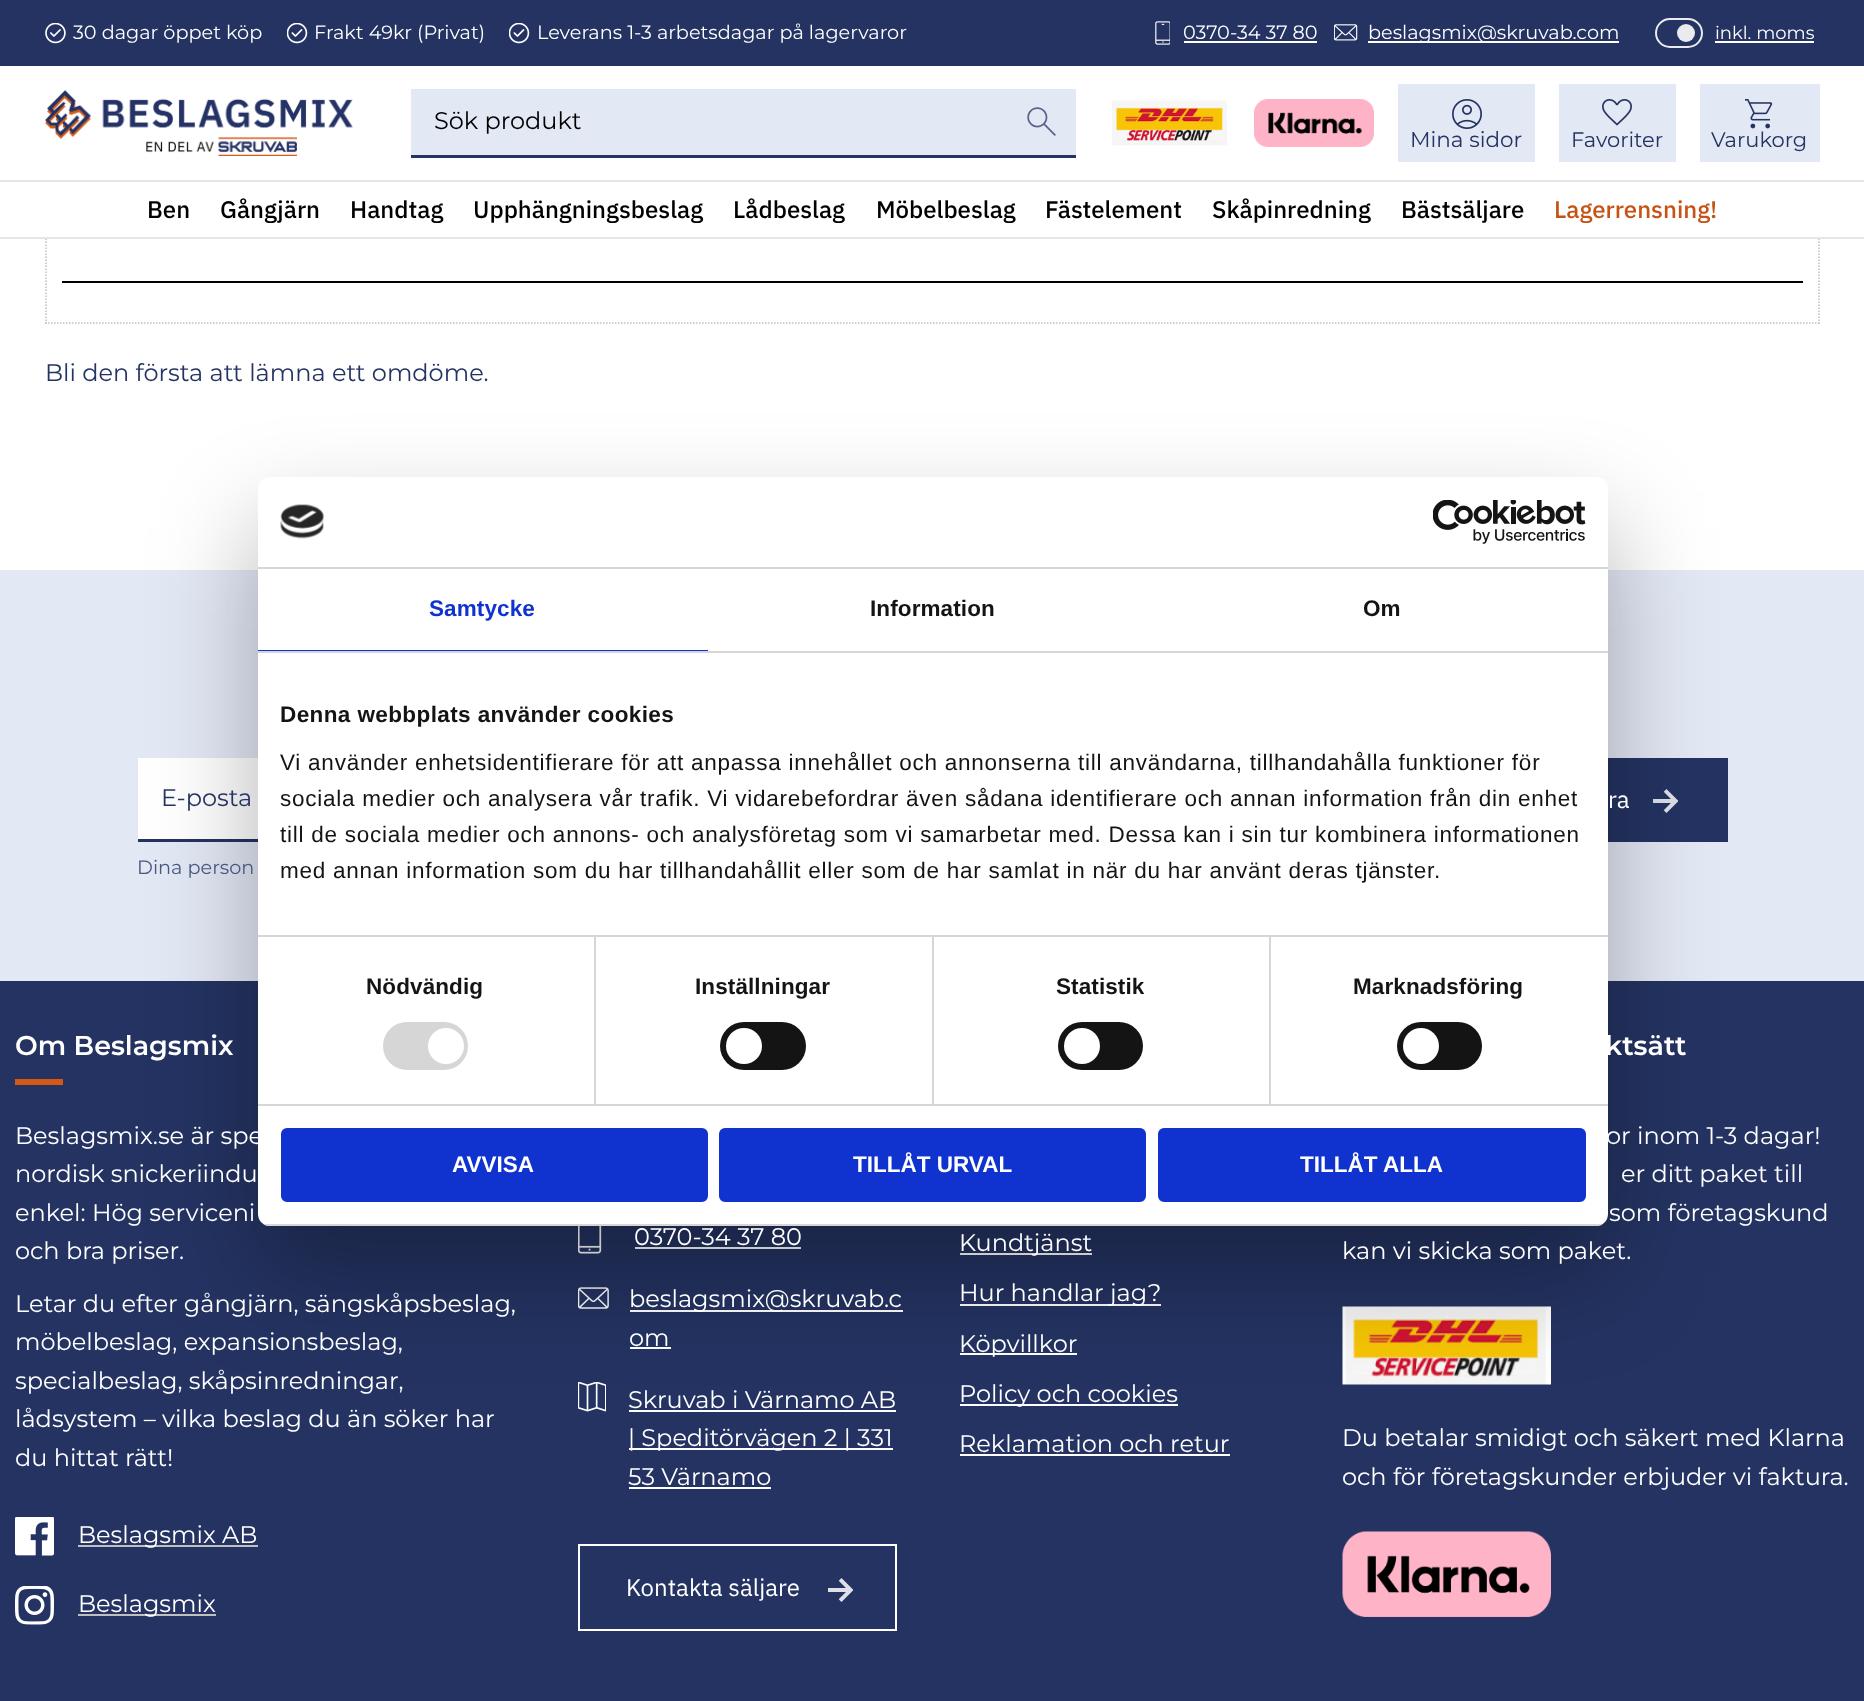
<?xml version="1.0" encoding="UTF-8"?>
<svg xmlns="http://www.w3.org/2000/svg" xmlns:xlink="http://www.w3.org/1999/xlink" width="1864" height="1701">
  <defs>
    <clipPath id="clip1"><rect x="258" y="477" width="1350" height="749" rx="12" /></clipPath>
  </defs>
  <rect width="100%" height="100%" fill="#ffffff" />
  <path d="M 1819 67.5 v 256.5" fill="none" stroke="#c0c0c0" stroke-width="1.5" stroke-dasharray="1.5 1.5" />
  <path d="M 45 323 h 1774.5" fill="none" stroke="#c0c0c0" stroke-width="1.5" stroke-dasharray="1.5 1.5" />
  <path d="M 46 67.5 v 256.5" fill="none" stroke="#c0c0c0" stroke-width="1.5" stroke-dasharray="1.5 1.5" />
  <rect x="45" y="67" width="1775" height="170" fill="#ffffff" />
  <rect y="237" width="1864" height="2" fill="#e6e6e6" />
  <rect width="1864" height="66" fill="#243362" />
  <image x="45" y="23" width="21" height="21" xlink:href="image1.png" />
  <image x="287" y="23" width="21" height="21" xlink:href="image2.png" />
  <image x="509" y="23" width="21" height="21" xlink:href="image2.png" />
  <image x="1155" y="21" width="15" height="24" xlink:href="image3.png" />
  <rect x="1184" y="41" width="133" height="2" fill="#ffffff" />
  <image x="1334" y="24" width="24" height="17" xlink:href="image4.png" />
  <rect x="1368" y="41" width="251" height="2" fill="#ffffff" />
  <rect x="1656" y="19" width="46" height="28" rx="14" fill="none" stroke="#e9ebef" stroke-width="2" />
  <circle cx="1686" cy="33" r="9" fill="#e9ebef" />
  <rect x="1715" y="41" width="99" height="2" fill="#ffffff" />
  <image x="45" y="90" width="308" height="66" xlink:href="image5.png" />
  <rect x="411" y="89" width="665" height="66" fill="#e3e8f5" />
  <rect x="411" y="155" width="665" height="3" fill="#243362" />
  <image x="1027" y="107" width="29" height="29" xlink:href="image6.png" />
  <image x="1112" y="100" width="115" height="46" xlink:href="image7.png" />
  <image x="1254" y="99" width="120" height="48" xlink:href="image8.png" />
  <rect x="1398" y="84" width="137" height="78" fill="#e3e8f5" />
  <image x="1452" y="99" width="30" height="30" xlink:href="image9.png" />
  <rect x="1559" y="84" width="117" height="78" fill="#e3e8f5" />
  <image x="1602" y="99" width="30" height="27" xlink:href="image10.png" />
  <rect x="1700" y="84" width="120" height="78" fill="#e3e8f5" />
  <image x="1745" y="99" width="28" height="30" xlink:href="image11.png" />
  <rect y="180" width="1864" height="2" fill="#e6e6e6" />
  <rect x="62" y="281" width="1741" height="2" fill="#000000" />
  <rect y="981" width="1864" height="720" fill="#243362" />
  <rect y="570" width="1864" height="411" fill="#e3e8f5" />
  <rect x="138" y="758" width="120" height="81" fill="#ffffff" />
  <rect x="138" y="839" width="120" height="3" fill="#243362" />
  <rect x="1608" y="758" width="120" height="84" fill="#243362" />
  <image x="1653" y="789" width="26" height="24" xlink:href="image12.png" />
  <rect x="15" y="1079" width="48" height="6" fill="#d45915" />
  <image x="15" y="1517" width="39" height="39" xlink:href="image13.png" />
  <rect x="78" y="1545" width="180" height="2" fill="#bfbfbf" />
  <image x="15" y="1586" width="39" height="39" xlink:href="image14.png" />
  <rect x="78" y="1614" width="138" height="2" fill="#bfbfbf" />
  <image x="578" y="1226" width="24" height="28" xlink:href="image15.png" />
  <rect x="635" y="1247" width="166" height="2" fill="#ffffff" />
  <image x="578" y="1287" width="31" height="22" xlink:href="image16.png" />
  <rect x="630" y="1310" width="273" height="2" fill="#ffffff" />
  <rect x="630" y="1347" width="41" height="2" fill="#ffffff" />
  <image x="578" y="1382" width="28" height="30" xlink:href="image17.png" />
  <rect x="629" y="1410" width="267" height="2" fill="#ffffff" />
  <rect x="629" y="1448" width="264" height="2" fill="#ffffff" />
  <rect x="629" y="1487" width="142" height="2" fill="#ffffff" />
  <rect x="579" y="1545" width="317" height="85" fill="none" stroke="#ffffff" stroke-width="2" />
  <image x="828" y="1578" width="26" height="24" xlink:href="image12.png" />
  <rect x="960" y="1253" width="132" height="2" fill="#ffffff" />
  <rect x="960" y="1304" width="201" height="2" fill="#ffffff" />
  <rect x="960" y="1353" width="117" height="2" fill="#ffffff" />
  <rect x="960" y="1404" width="218" height="2" fill="#ffffff" />
  <rect x="960" y="1454" width="270" height="2" fill="#ffffff" />
  <image x="1342" y="1306" width="209" height="79" xlink:href="image18.png" />
  <image x="1342" y="1531" width="209" height="86" xlink:href="image19.png" />
  <rect x="258" y="525" width="1350" height="749" rx="12" fill="#000000" fill-opacity="0.3" filter="blur(51px)" />
  <rect x="258" y="477" width="1350" height="749" rx="12" fill="#ffffff" />
  <rect x="258" y="567" width="1350" height="2" fill="#d6d6d6" />
  <image x="280" y="504" width="45" height="35" xlink:href="image20.png" />
  <image x="1433" y="500" width="153" height="44" xlink:href="image21.png" />
  <rect x="258" y="651" width="1350" height="2" fill="#d6d6d6" />
  <rect x="258" y="650" width="450" height="1" fill="#1032cf" />
  <rect x="594" y="936" width="2" height="168" fill="#d6d6d6" />
  <rect x="932" y="936" width="2" height="168" fill="#d6d6d6" />
  <rect x="1269" y="936" width="2" height="168" fill="#d6d6d6" />
  <rect x="258" y="935" width="1350" height="2" fill="#d6d6d6" />
  <rect x="258" y="1104" width="1350" height="2" fill="#d6d6d6" />
  <rect x="383" y="1022" width="85" height="48" rx="24" fill="#d6d6d6" />
  <circle cx="446" cy="1046" r="18" fill="#ffffff" />
  <rect x="720" y="1022" width="86" height="48" rx="24" fill="#141414" />
  <circle cx="744" cy="1046" r="18" fill="#ffffff" />
  <rect x="1058" y="1022" width="85" height="48" rx="24" fill="#141414" />
  <circle cx="1082" cy="1046" r="18" fill="#ffffff" />
  <rect x="1397" y="1022" width="85" height="48" rx="24" fill="#141414" />
  <circle cx="1421" cy="1046" r="18" fill="#ffffff" />
  <g clip-path="url(#clip1)">
    <rect x="258" y="1224" width="1350" height="2" fill="#d6d6d6" />
  </g>
  <rect x="282.5" y="1129.5" width="424" height="71" rx="4.5" fill="#1032cf" stroke="#1032cf" stroke-width="3" />
  <rect x="720.5" y="1129.5" width="424" height="71" rx="4.5" fill="#1032cf" stroke="#1032cf" stroke-width="3" />
  <rect x="1159.5" y="1129.5" width="425" height="71" rx="4.5" fill="#1032cf" stroke="#1032cf" stroke-width="3" />
  <text x="73" y="39" style="font-family: Montserrat; font-size: 19.25px; fill: #ffffff">30 dagar öppet köp</text>
  <text x="314" y="39" style="font-family: Montserrat; font-size: 19.25px; fill: #ffffff">Frakt 49kr (Privat)</text>
  <text x="537" y="39" style="font-family: Montserrat; font-size: 19.25px; fill: #ffffff">Leverans 1-3 arbetsdagar på lagervaror</text>
  <text x="1183" y="39" style="font-family: Montserrat; font-size: 19.25px; fill: #ffffff">0370-34 37 80</text>
  <text x="1368" y="39" style="font-family: Montserrat; font-size: 19.25px; fill: #ffffff">beslagsmix@skruvab.com</text>
  <text x="1715" y="39" style="font-family: Montserrat; font-size: 18px; fill: #ffffff">inkl. moms</text>
  <text x="434" y="129" style="font-family: Montserrat; font-size: 24px; fill: #000000">Sök produkt</text>
  <text x="1410" y="147" style="font-family: Montserrat; font-size: 21.5px; fill: #243362">Mina sidor</text>
  <text x="1571" y="147" style="font-family: Montserrat; font-size: 21px; fill: #243362">Favoriter</text>
  <text x="1711" y="147" style="font-family: Montserrat; font-size: 21px; fill: #243362">Varukorg</text>
  <text x="147" y="218" style="font-family: IBM Plex Sans; font-size: 24px; font-weight: 500; fill: #000000">Ben</text>
  <text x="220" y="218" style="font-family: IBM Plex Sans; font-size: 24px; font-weight: 500; fill: #000000">Gångjärn</text>
  <text x="350" y="218" style="font-family: IBM Plex Sans; font-size: 24px; font-weight: 500; fill: #000000">Handtag</text>
  <text x="473" y="218" style="font-family: IBM Plex Sans; font-size: 24px; font-weight: 500; fill: #000000">Upphängningsbeslag</text>
  <text x="733" y="218" style="font-family: IBM Plex Sans; font-size: 24px; font-weight: 500; fill: #000000">Lådbeslag</text>
  <text x="876" y="218" style="font-family: IBM Plex Sans; font-size: 24px; font-weight: 500; fill: #000000">Möbelbeslag</text>
  <text x="1045" y="218" style="font-family: IBM Plex Sans; font-size: 24px; font-weight: 500; fill: #000000">Fästelement</text>
  <text x="1212" y="218" style="font-family: IBM Plex Sans; font-size: 24px; font-weight: 500; fill: #000000">Skåpinredning</text>
  <text x="1401" y="218" style="font-family: IBM Plex Sans; font-size: 24px; font-weight: 500; fill: #000000">Bästsäljare</text>
  <text x="1554" y="218" style="font-family: IBM Plex Sans; font-size: 24px; font-weight: 500; fill: #c55314">Lagerrensning!</text>
  <text x="45" y="381" style="font-family: Montserrat; font-size: 24px; fill: #243362">Bli den första att lämna ett omdöme.</text>
  <text x="161" y="806" style="font-family: Montserrat; font-size: 24px; fill: #243362">E-posta</text>
  <text x="1608" y="808" style="font-family: IBM Plex Sans; font-size: 24px; fill: #ffffff">ra</text>
  <text x="137" y="874" style="font-family: Montserrat; font-size: 19.25px; fill: #4a577f">Dina person</text>
  <text x="15" y="1055" style="font-family: Montserrat; font-size: 27px; font-weight: 600; fill: #ffffff">Om Beslagsmix</text>
  <text x="1605" y="1055" style="font-family: Montserrat; font-size: 27px; font-weight: 600; fill: #ffffff">ktsätt</text>
  <text x="15" y="1144" style="font-family: Montserrat; font-size: 24px; fill: #ffffff">Beslagsmix.se är spe</text>
  <text x="15" y="1182" style="font-family: Montserrat; font-size: 24px; fill: #ffffff">nordisk snickeriindu</text>
  <text x="15" y="1221" style="font-family: Montserrat; font-size: 24px; fill: #ffffff">enkel: Hög serviceni</text>
  <text x="15" y="1259" style="font-family: Montserrat; font-size: 24px; fill: #ffffff">och bra priser.</text>
  <text x="15" y="1312" style="font-family: Montserrat; font-size: 24px; fill: #ffffff">Letar du efter gångjärn, sängskåpsbeslag,</text>
  <text x="15" y="1350" style="font-family: Montserrat; font-size: 24px; fill: #ffffff">möbelbeslag, expansionsbeslag,</text>
  <text x="15" y="1389" style="font-family: Montserrat; font-size: 24px; fill: #ffffff">specialbeslag, skåpsinredningar,</text>
  <text x="15" y="1427" style="font-family: Montserrat; font-size: 24px; fill: #ffffff">lådsystem – vilka beslag du än söker har</text>
  <text x="15" y="1466" style="font-family: Montserrat; font-size: 24px; fill: #ffffff">du hittat rätt!</text>
  <text x="78" y="1543" style="font-family: Montserrat; font-size: 24px; fill: #ffffff">Beslagsmix AB</text>
  <text x="78" y="1612" style="font-family: Montserrat; font-size: 24px; fill: #ffffff">Beslagsmix</text>
  <text x="634" y="1245" style="font-family: Montserrat; font-size: 24px; fill: #ffffff">0370-34 37 80</text>
  <text x="629" y="1307" style="font-family: Montserrat; font-size: 24px; fill: #ffffff">beslagsmix@skruvab.c</text>
  <text x="629" y="1346" style="font-family: Montserrat; font-size: 24px; fill: #ffffff">om</text>
  <text x="628" y="1408" style="font-family: Montserrat; font-size: 24px; fill: #ffffff">Skruvab i Värnamo AB</text>
  <text x="628" y="1446" style="font-family: Montserrat; font-size: 24px; fill: #ffffff">| Speditörvägen 2 | 331</text>
  <text x="628" y="1485" style="font-family: Montserrat; font-size: 24px; fill: #ffffff">53 Värnamo</text>
  <text x="626" y="1596" style="font-family: IBM Plex Sans; font-size: 24px; fill: #ffffff">Kontakta säljare</text>
  <text x="959" y="1251" style="font-family: Montserrat; font-size: 24px; fill: #ffffff">Kundtjänst</text>
  <text x="959" y="1301" style="font-family: Montserrat; font-size: 24px; fill: #ffffff">Hur handlar jag?</text>
  <text x="959" y="1352" style="font-family: Montserrat; font-size: 24px; fill: #ffffff">Köpvillkor</text>
  <text x="959" y="1402" style="font-family: Montserrat; font-size: 24px; fill: #ffffff">Policy och cookies</text>
  <text x="959" y="1452" style="font-family: Montserrat; font-size: 24px; fill: #ffffff">Reklamation och retur</text>
  <text x="1606" y="1144" style="font-family: Montserrat; font-size: 24px; fill: #ffffff">or inom 1-3 dagar!</text>
  <text x="1621" y="1182" style="font-family: Montserrat; font-size: 24px; fill: #ffffff">er ditt paket till</text>
  <text x="1609" y="1221" style="font-family: Montserrat; font-size: 24px; fill: #ffffff">som företagskund</text>
  <text x="1342" y="1259" style="font-family: Montserrat; font-size: 24px; fill: #ffffff">kan vi skicka som paket.</text>
  <text x="1342" y="1446" style="font-family: Montserrat; font-size: 24px; fill: #ffffff">Du betalar smidigt och säkert med Klarna</text>
  <text x="1342" y="1485" style="font-family: Montserrat; font-size: 24px; fill: #ffffff">och för företagskunder erbjuder vi faktura.</text>
  <text x="429" y="616" style="font-family: Liberation Sans; font-size: 22.5px; font-weight: bold; letter-spacing: 0.1px; fill: #1032cf">Samtycke</text>
  <text x="870" y="616" style="font-family: Liberation Sans; font-size: 22.5px; font-weight: bold; letter-spacing: 0.1px; fill: #141414">Information</text>
  <text x="1363" y="616" style="font-family: Liberation Sans; font-size: 22.5px; font-weight: bold; letter-spacing: 0.1px; fill: #141414">Om</text>
  <text x="280" y="722" style="font-family: Liberation Sans; font-size: 22.5px; font-weight: bold; letter-spacing: 0.4px; fill: #141414">Denna webbplats använder cookies</text>
  <text x="280" y="770" style="font-family: Liberation Sans; font-size: 22.5px; letter-spacing: 0.75px; fill: #141414">Vi använder enhetsidentifierare för att anpassa innehållet och annonserna till användarna, tillhandahålla funktioner för</text>
  <text x="280" y="806" style="font-family: Liberation Sans; font-size: 22.5px; letter-spacing: 0.75px; fill: #141414">sociala medier och analysera vår trafik. Vi vidarebefordrar även sådana identifierare och annan information från din enhet</text>
  <text x="280" y="842" style="font-family: Liberation Sans; font-size: 22.5px; letter-spacing: 0.75px; fill: #141414">till de sociala medier och annons- och analysföretag som vi samarbetar med. Dessa kan i sin tur kombinera informationen</text>
  <text x="280" y="878" style="font-family: Liberation Sans; font-size: 22.5px; letter-spacing: 0.75px; fill: #141414">med annan information som du har tillhandahållit eller som de har samlat in när du har använt deras tjänster.</text>
  <text x="366" y="994" style="font-family: Liberation Sans; font-size: 22.5px; font-weight: bold; letter-spacing: 0.1px; fill: #141414">Nödvändig</text>
  <text x="695" y="994" style="font-family: Liberation Sans; font-size: 22.5px; font-weight: bold; letter-spacing: 0.1px; fill: #141414">Inställningar</text>
  <text x="1056" y="994" style="font-family: Liberation Sans; font-size: 22.5px; font-weight: bold; letter-spacing: 0.1px; fill: #141414">Statistik</text>
  <text x="1353" y="994" style="font-family: Liberation Sans; font-size: 22.5px; font-weight: bold; letter-spacing: 0.1px; fill: #141414">Marknadsföring</text>
  <text x="452" y="1172" style="font-family: Liberation Sans; font-size: 22.5px; font-weight: bold; fill: #ffffff">AVVISA</text>
  <text x="853" y="1172" style="font-family: Liberation Sans; font-size: 22.5px; font-weight: bold; fill: #ffffff">TILLÅT URVAL</text>
  <text x="1300" y="1172" style="font-family: Liberation Sans; font-size: 22.5px; font-weight: bold; fill: #ffffff">TILLÅT ALLA</text>
</svg>
